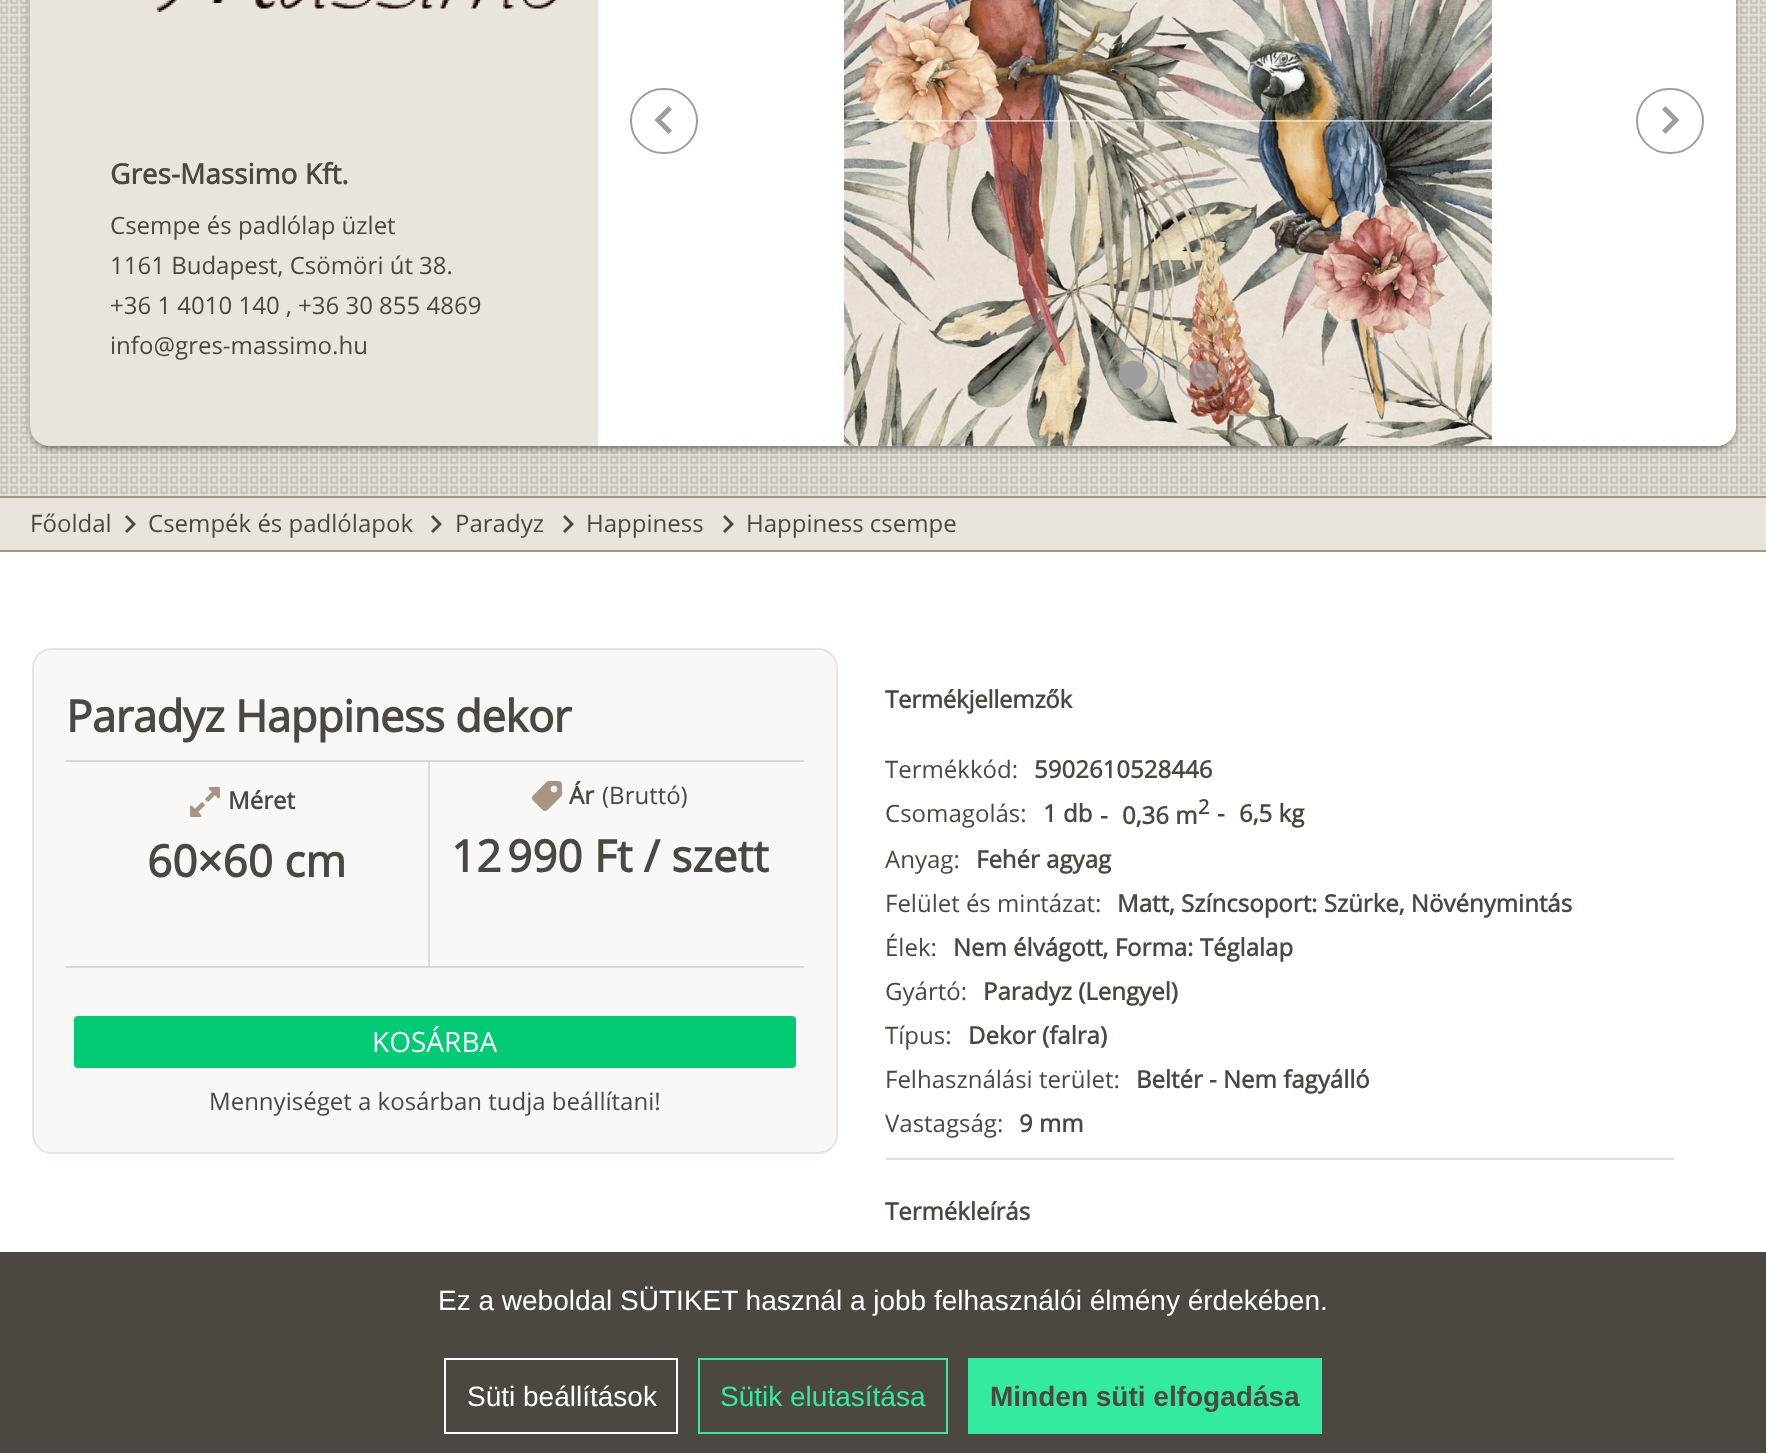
<?xml version="1.0" encoding="UTF-8"?>
<svg xmlns="http://www.w3.org/2000/svg" xmlns:xlink="http://www.w3.org/1999/xlink" width="1766" height="1453">
  <rect width="100%" height="100%" fill="#ffffff" />
  <image x="0" y="0" width="1766" height="496" xlink:href="image1.png" />
  <rect x="34" y="-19" width="1698" height="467" rx="16" fill="#000000" fill-opacity="0.12" filter="blur(1px)" />
  <rect x="30" y="-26" width="1706" height="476" rx="20" fill="#000000" fill-opacity="0.14" filter="blur(2px)" />
  <rect x="30" y="-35" width="1706" height="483" rx="20" fill="#000000" fill-opacity="0.2" filter="blur(5px)" />
  <rect x="30" y="-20" width="1706" height="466" rx="20" fill="#e9e5dc" />
  <image x="156" y="0" width="401" height="12" xlink:href="image2.png" />
  <path d="M 598 -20 h 1118 c 11 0 20 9 20 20 v 426 c 0 11 -9 20 -20 20 h -1118 z" fill="#ffffff" />
  <rect x="631" y="89" width="66" height="64" rx="32" fill="none" stroke="#9e9e9e" stroke-width="2" />
  <path d="M 672 109.5 l -10.5 10.5 l 10.5 10.5 l -3.5 3.5 l -14 -14 l 14 -14 z" fill="#9e9e9e" />
  <image x="844" y="0" width="648" height="446" xlink:href="image3.png" />
  <rect x="1637" y="89" width="66" height="64" rx="32" fill="none" stroke="#9e9e9e" stroke-width="2" />
  <path d="M 1665.5 106 l 14 14 l -14 14 l -3.5 -3.5 l 10.5 -10.5 l -10.5 -10.5 z" fill="#9e9e9e" />
  <circle cx="1133" cy="375" r="26" fill="none" stroke="#9e9e9e" stroke-width="2" />
  <path d="M 1123 365 c 13.5 -13.5 33.5 6.5 20 20 c -13 13 -33 -7 -20 -20 z" fill="#9e9e9e" />
  <circle cx="1203" cy="375" r="26" fill="none" stroke="#9e9e9e" stroke-opacity="0.7" stroke-width="2" />
  <path d="M 1193 365 c 13.5 -13.5 33.5 6.5 20 20 c -13 13 -33 -7 -20 -20 z" fill="#9e9e9e" fill-opacity="0.7" />
  <rect y="498" width="1766" height="52" fill="#e9e5dc" />
  <rect y="496" width="1766" height="2" fill="#a79483" />
  <rect y="550" width="1766" height="2" fill="#a79483" />
  <path d="M 127 515 l 9 9 l -9 9 l -2 -2 l 7 -7 l -7 -7 z" fill="#4c4841" />
  <path d="M 433 515 l 9 9 l -9 9 l -2 -2 l 7 -7 l -7 -7 z" fill="#4c4841" />
  <path d="M 565 515 l 9 9 l -9 9 l -2 -2 l 7 -7 l -7 -7 z" fill="#4c4841" />
  <path d="M 725 515 l 9 9 l -9 9 l -2 -2 l 7 -7 l -7 -7 z" fill="#4c4841" />
  <rect x="33" y="649" width="804" height="504" rx="19" fill="#f9f8f7" stroke="#e9e5dc" stroke-width="2" />
  <rect x="66" y="760" width="738" height="2" fill="#dbdad9" />
  <image x="190" y="787" width="30" height="30" xlink:href="image4.png" />
  <rect x="428" y="762" width="2" height="204" fill="#dbdad9" />
  <image x="532" y="781" width="30" height="30" xlink:href="image5.png" />
  <rect x="66" y="966" width="738" height="2" fill="#dbdad9" />
  <rect x="74" y="1016" width="722" height="52" rx="4" fill="#00ca74" />
  <rect x="886" y="1158" width="788" height="2" fill="#e0e0e0" />
  <rect y="1252" width="1766" height="201" fill="#4c4841" />
  <rect x="445" y="1359" width="232" height="74" fill="none" stroke="#ffffff" stroke-width="2" />
  <rect x="699" y="1359" width="248" height="74" fill="none" stroke="#32eb9e" stroke-width="2" />
  <rect x="968" y="1358" width="354" height="76" fill="#32eb9e" />
  <text x="110" y="184" style="font-family: Open Sans; font-size: 28px; font-weight: bold; fill: #4c4841">Gres-Massimo Kft.</text>
  <text x="110" y="234" style="font-family: Open Sans; font-size: 24px; fill: #4c4841">Csempe és padlólap üzlet</text>
  <text x="110" y="274" style="font-family: Open Sans; font-size: 24px; fill: #4c4841">1161 Budapest, Csömöri út 38.</text>
  <text x="110" y="314" style="font-family: Open Sans; font-size: 24px; fill: #4c4841">+36 1 4010 140 , +36 30 855 4869</text>
  <text x="110" y="354" style="font-family: Open Sans; font-size: 24px; fill: #4c4841">info@gres-massimo.hu</text>
  <text x="30" y="532" style="font-family: Open Sans; font-size: 24px; fill: #4c4841">Főoldal</text>
  <text x="148" y="532" style="font-family: Open Sans; font-size: 24px; fill: #4c4841">Csempék és padlólapok</text>
  <text x="455" y="532" style="font-family: Open Sans; font-size: 24px; fill: #4c4841">Paradyz</text>
  <text x="586" y="532" style="font-family: Open Sans; font-size: 24px; fill: #4c4841">Happiness</text>
  <text x="746" y="532" style="font-family: Open Sans; font-size: 24px; fill: #4c4841">Happiness csempe</text>
  <text x="66" y="732" style="font-family: Open Sans; font-size: 44px; font-weight: bold; letter-spacing: -0.7px; fill: #4c4841">Paradyz Happiness dekor</text>
  <text x="228" y="809" style="font-family: Open Sans; font-size: 24px; font-weight: bold; fill: #4c4841">Méret</text>
  <text x="147" y="877" style="font-family: Open Sans; font-size: 44px; font-weight: bold; fill: #4c4841">60×60 cm</text>
  <text x="569" y="804" style="font-family: Open Sans; font-size: 24px; font-weight: bold; fill: #4c4841">Ár</text>
  <text x="602" y="804" style="font-family: Open Sans; font-size: 24px; fill: #4c4841">(Bruttó)</text>
  <text x="451" y="872" style="font-family: Open Sans; font-size: 44px; font-weight: bold; fill: #4c4841">12 990 Ft / szett</text>
  <text x="372" y="1052" style="font-family: Open Sans; font-size: 28px; fill: #ffffff">KOSÁRBA</text>
  <text x="209" y="1110" style="font-family: Open Sans; font-size: 24px; fill: #4c4841">Mennyiséget a kosárban tudja beállítani!</text>
  <text x="885" y="708" style="font-family: Open Sans; font-size: 24px; font-weight: bold; letter-spacing: -0.25px; fill: #4c4841">Termékjellemzők</text>
  <text x="885" y="778" style="font-family: Open Sans; font-size: 24px; fill: #4c4841">Termékkód:</text>
  <text x="1034" y="778" style="font-family: Open Sans; font-size: 24px; font-weight: bold; fill: #4c4841">5902610528446</text>
  <text x="885" y="822" style="font-family: Open Sans; font-size: 24px; fill: #4c4841">Csomagolás:</text>
  <text x="1043" y="822" style="font-family: Open Sans; font-size: 24px; font-weight: bold; fill: #4c4841">1 db</text>
  <text x="1100" y="824" style="font-family: Open Sans; font-size: 24px; font-weight: bold; fill: #4c4841">-</text>
  <text x="1122" y="824" style="font-family: Open Sans; font-size: 24px; font-weight: bold; fill: #4c4841">0,36 m</text>
  <text x="1198" y="814" style="font-family: Open Sans; font-size: 20px; font-weight: bold; fill: #4c4841">2</text>
  <text x="1217" y="822" style="font-family: Open Sans; font-size: 24px; font-weight: bold; fill: #4c4841">-</text>
  <text x="1239" y="822" style="font-family: Open Sans; font-size: 24px; font-weight: bold; fill: #4c4841">6,5 kg</text>
  <text x="885" y="868" style="font-family: Open Sans; font-size: 24px; fill: #4c4841">Anyag:</text>
  <text x="976" y="868" style="font-family: Open Sans; font-size: 24px; font-weight: bold; fill: #4c4841">Fehér agyag</text>
  <text x="885" y="912" style="font-family: Open Sans; font-size: 24px; fill: #4c4841">Felület és mintázat:</text>
  <text x="1117" y="912" style="font-family: Open Sans; font-size: 24px; font-weight: bold; fill: #4c4841">Matt, Színcsoport: Szürke, Növénymintás</text>
  <text x="885" y="956" style="font-family: Open Sans; font-size: 24px; fill: #4c4841">Élek:</text>
  <text x="953" y="956" style="font-family: Open Sans; font-size: 24px; font-weight: bold; fill: #4c4841">Nem élvágott, Forma: Téglalap</text>
  <text x="885" y="1000" style="font-family: Open Sans; font-size: 24px; fill: #4c4841">Gyártó:</text>
  <text x="983" y="1000" style="font-family: Open Sans; font-size: 24px; font-weight: bold; fill: #4c4841">Paradyz (Lengyel)</text>
  <text x="885" y="1044" style="font-family: Open Sans; font-size: 24px; fill: #4c4841">Típus:</text>
  <text x="968" y="1044" style="font-family: Open Sans; font-size: 24px; font-weight: bold; fill: #4c4841">Dekor (falra)</text>
  <text x="885" y="1088" style="font-family: Open Sans; font-size: 24px; fill: #4c4841">Felhasználási terület:</text>
  <text x="1136" y="1088" style="font-family: Open Sans; font-size: 24px; font-weight: bold; fill: #4c4841">Beltér - Nem fagyálló</text>
  <text x="885" y="1132" style="font-family: Open Sans; font-size: 24px; fill: #4c4841">Vastagság:</text>
  <text x="1019" y="1132" style="font-family: Open Sans; font-size: 24px; font-weight: bold; fill: #4c4841">9 mm</text>
  <text x="885" y="1220" style="font-family: Open Sans; font-size: 24px; font-weight: bold; fill: #4c4841">Termékleírás</text>
  <text x="438" y="1310" style="font-family: Liberation Sans; font-size: 28px; fill: #ffffff">Ez a weboldal SÜTIKET használ a jobb felhasználói élmény érdekében.</text>
  <text x="467" y="1406" style="font-family: Liberation Sans; font-size: 28px; fill: #ffffff">Süti beállítások</text>
  <text x="720" y="1406" style="font-family: Liberation Sans; font-size: 28px; fill: #32eb9e">Sütik elutasítása</text>
  <text x="990" y="1406" style="font-family: Liberation Sans; font-size: 28px; font-weight: bold; fill: #4c4841">Minden süti elfogadása</text>
</svg>
